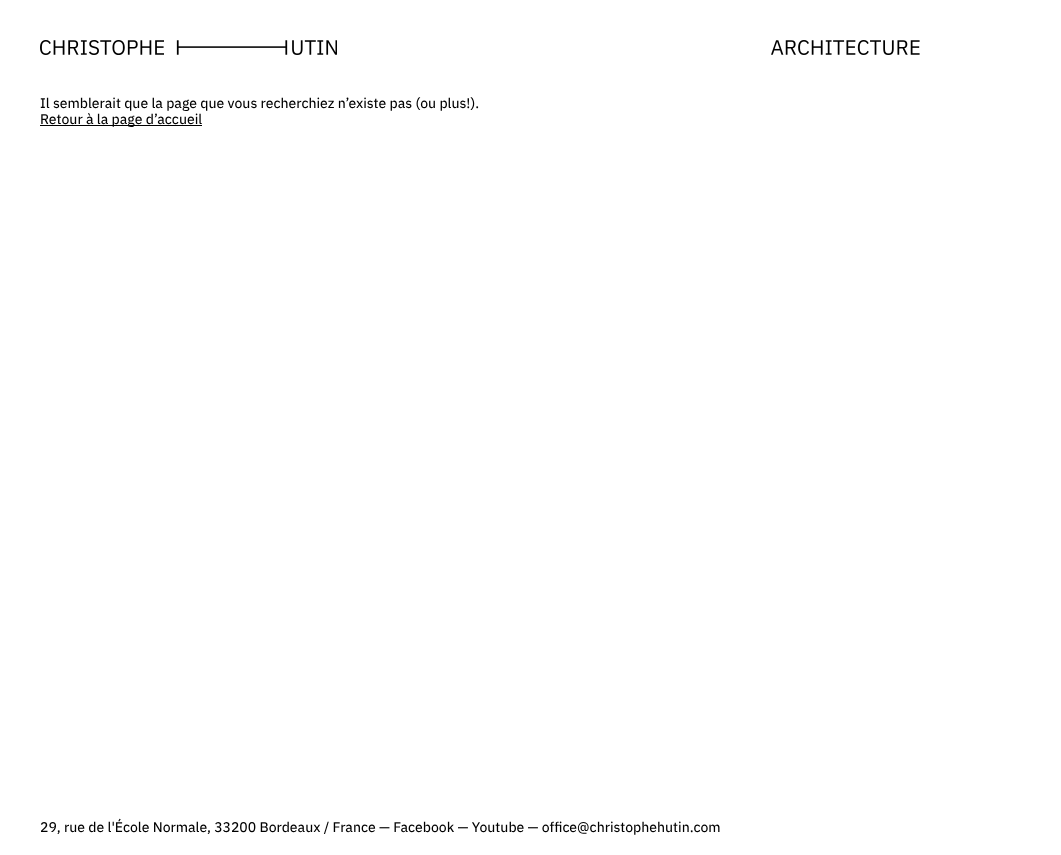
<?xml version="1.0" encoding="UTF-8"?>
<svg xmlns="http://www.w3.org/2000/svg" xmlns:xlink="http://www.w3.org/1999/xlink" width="1061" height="855">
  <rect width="100%" height="100%" fill="#ffffff" />
  <image x="40" y="40" width="297" height="15" xlink:href="image1.png" />
  <image x="771" y="40" width="149" height="15" xlink:href="image2.png" />
  <rect x="40" y="125" width="162" height="1" fill="#000000" />
  <text x="40" y="108" style="font-family: IBM Plex Sans; font-size: 14px; font-weight: 500; fill: #000000">Il semblerait que la page que vous recherchiez n’existe pas (ou plus!).</text>
  <text x="40" y="124" style="font-family: IBM Plex Sans; font-size: 14px; font-weight: 500; fill: #000000">Retour à la page d’accueil</text>
  <text x="40" y="832" style="font-family: IBM Plex Sans; font-size: 14px; font-weight: 500; fill: #000000">29, rue de l'École Normale, 33200 Bordeaux / France — Facebook — Youtube — office@christophehutin.com</text>
</svg>
